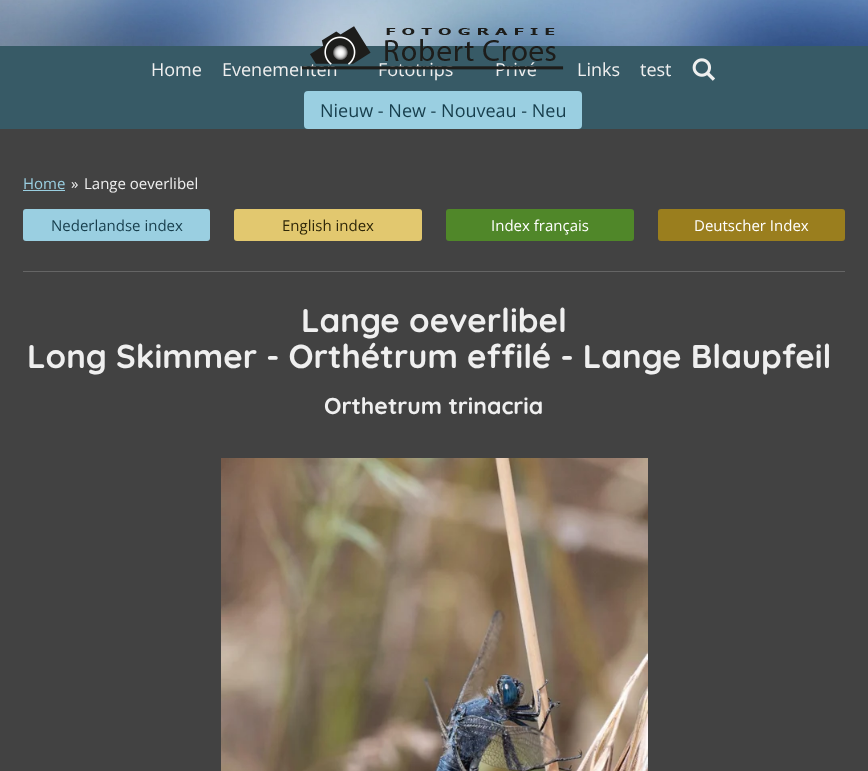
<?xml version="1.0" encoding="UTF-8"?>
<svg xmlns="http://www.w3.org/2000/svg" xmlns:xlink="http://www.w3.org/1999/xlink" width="868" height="771">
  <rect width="100%" height="100%" fill="#375a66" />
  <image x="0" y="0" width="868" height="46" xlink:href="image1.png" />
  <image x="692" y="58" width="23" height="23" xlink:href="image3.png" />
  <rect x="304" y="91" width="278" height="38" rx="4" fill="#9acfe1" />
  <rect y="129" width="868" height="642" fill="#424242" />
  <rect x="23" y="190" width="42" height="1" fill="#9acfe1" />
  <rect x="23" y="209" width="187" height="32" rx="3" fill="#9acfe1" />
  <rect x="234" y="209" width="188" height="32" rx="3" fill="#e2c86f" />
  <rect x="446" y="209" width="188" height="32" rx="3" fill="#508729" />
  <rect x="658" y="209" width="187" height="32" rx="3" fill="#9a7e1e" />
  <rect x="23" y="271" width="822" height="1" fill="#656565" />
  <image x="221" y="458" width="427" height="313" xlink:href="image4.png" />
  <text x="151" y="76" style="font-family: Open Sans; font-size: 18px; fill: #efefef">Home</text>
  <text x="222" y="76" style="font-family: Open Sans; font-size: 18px; fill: #efefef">Evenementen</text>
  <text x="378" y="76" style="font-family: Open Sans; font-size: 18px; fill: #efefef">Fototrips</text>
  <text x="495" y="76" style="font-family: Open Sans; font-size: 18px; fill: #efefef">Privé</text>
  <image x="302" y="26" width="262" height="44" xlink:href="image2.png" />
  <text x="577" y="76" style="font-family: Open Sans; font-size: 18px; fill: #efefef">Links</text>
  <text x="640" y="76" style="font-family: Open Sans; font-size: 18px; fill: #efefef">test</text>
  <text x="320" y="117" style="font-family: Open Sans; font-size: 18px; fill: #173e4c">Nieuw - New - Nouveau - Neu</text>
  <text x="23" y="189" style="font-family: Open Sans; font-size: 15px; fill: #9acfe1">Home</text>
  <text x="71" y="189" style="font-family: Open Sans; font-size: 15px; fill: #efefef">»</text>
  <text x="84" y="189" style="font-family: Open Sans; font-size: 15px; fill: #efefef">Lange oeverlibel</text>
  <text x="51" y="231" style="font-family: Open Sans; font-size: 15px; fill: #173e4c">Nederlandse index</text>
  <text x="282" y="231" style="font-family: Open Sans; font-size: 15px; fill: #2f2709">English index</text>
  <text x="491" y="231" style="font-family: Open Sans; font-size: 15px; fill: #ffffff">Index français</text>
  <text x="694" y="231" style="font-family: Open Sans; font-size: 15px; fill: #ffffff">Deutscher Index</text>
  <text x="301" y="332" style="font-family: Quicksand; font-size: 33px; font-weight: bold; fill: #efefef">Lange oeverlibel</text>
  <text x="27" y="368" style="font-family: Quicksand; font-size: 33px; font-weight: bold; fill: #efefef">Long Skimmer - Orthétrum effilé - Lange Blaupfeil</text>
  <text x="324" y="414" style="font-family: Quicksand; font-size: 23px; font-weight: bold; fill: #efefef">Orthetrum trinacria</text>
</svg>
